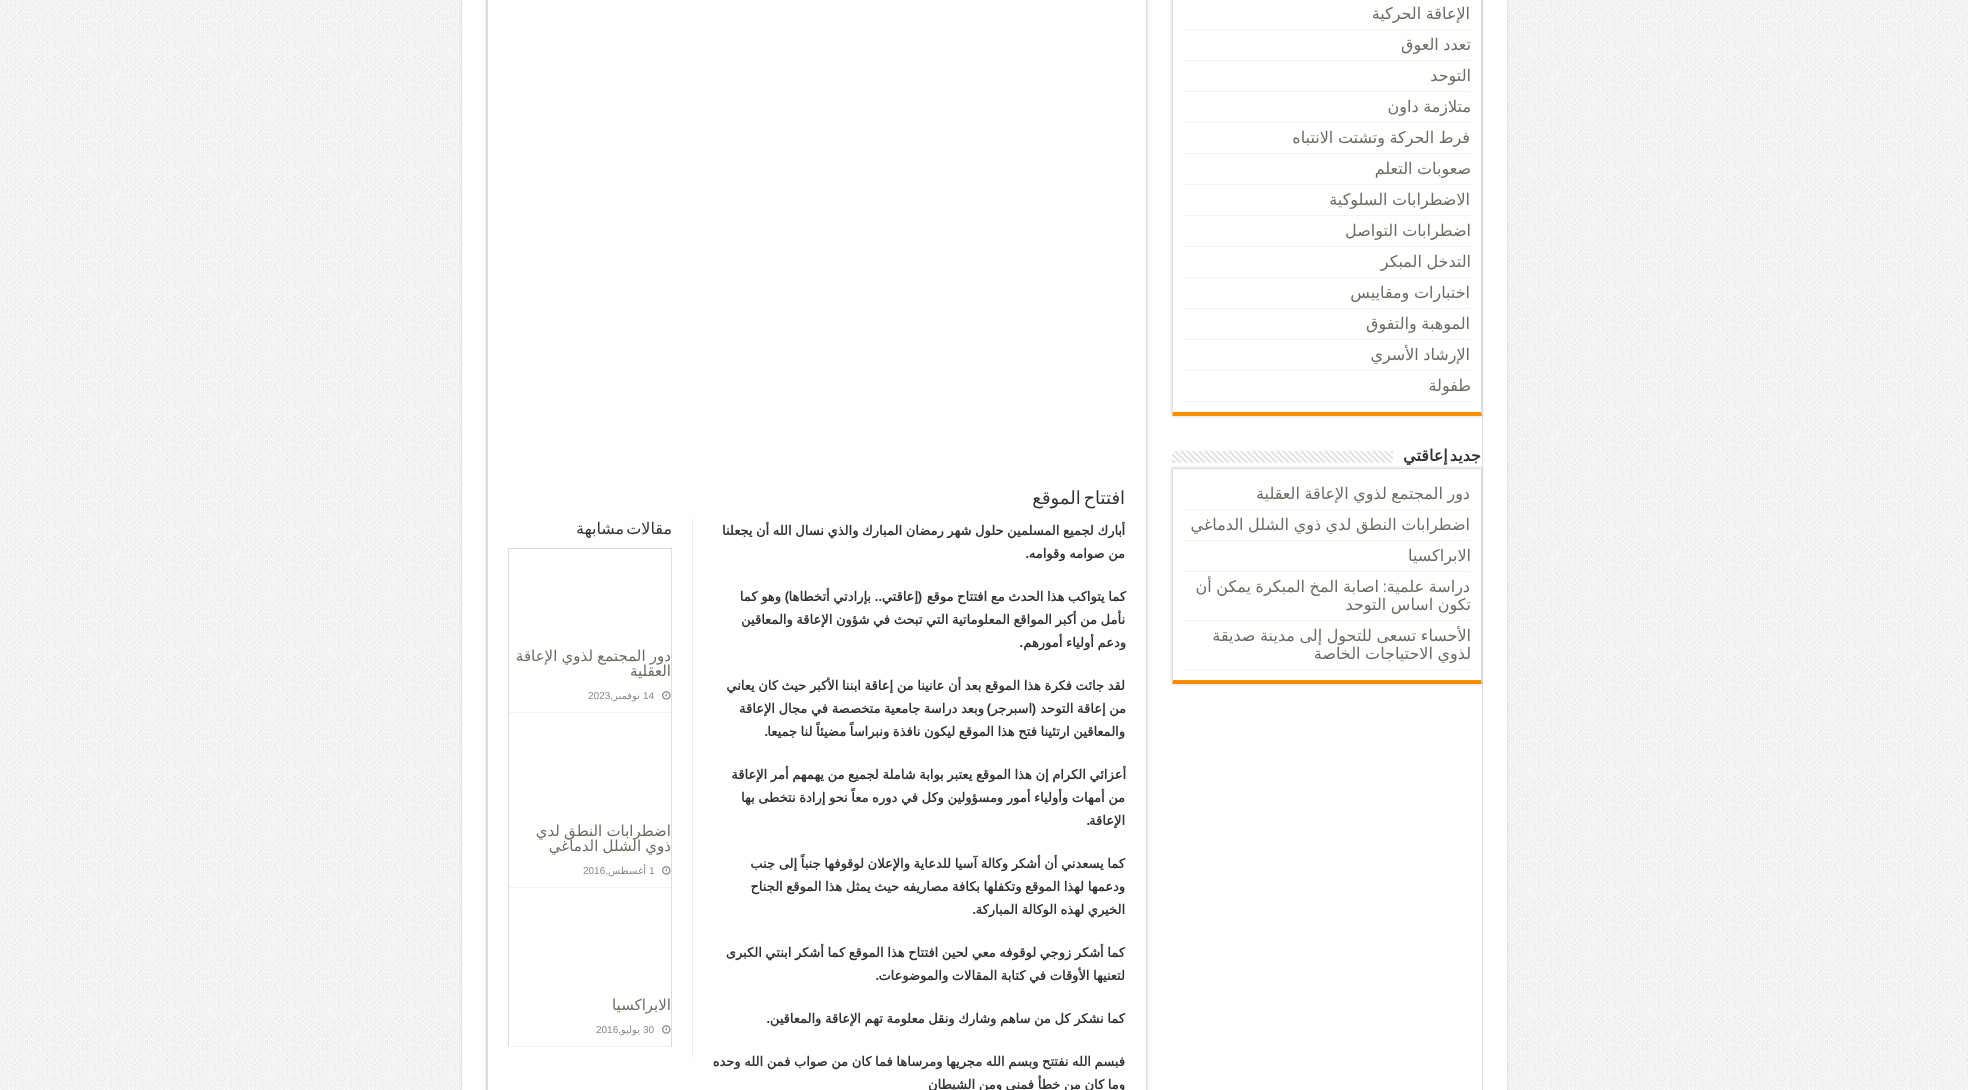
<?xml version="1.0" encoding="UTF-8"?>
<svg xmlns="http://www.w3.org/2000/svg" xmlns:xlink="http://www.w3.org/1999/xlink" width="1968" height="1090">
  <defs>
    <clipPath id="clip1"><path d="M 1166 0 h 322 v 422 h -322 z m 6 -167 h 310 v 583 h -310 z" clip-rule="evenodd" /></clipPath>
    <clipPath id="clip2"><path d="M 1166 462 h 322 v 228 h -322 z m 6 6 h 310 v 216 h -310 z" clip-rule="evenodd" /></clipPath>
    <clipPath id="clip3"><path d="M 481 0 h 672 v 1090 h -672 z m 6 -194 h 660 v 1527 h -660 z" clip-rule="evenodd" /></clipPath>
    <clipPath id="clip4"><rect x="1183" y="123" width="288" height="30" /></clipPath>
    <clipPath id="clip5"><rect x="1183" y="479" width="288" height="30" /></clipPath>
    <clipPath id="clip6"><rect x="1183" y="510" width="288" height="30" /></clipPath>
    <clipPath id="clip7"><rect x="1183" y="621" width="288" height="48" /></clipPath>
    <clipPath id="clip8"><rect x="508" y="519" width="164" height="29" /></clipPath>
  </defs>
  <rect width="100%" height="100%" fill="#ffffff" />
  <image x="0" y="0" width="1968" height="1090" xlink:href="image1.png" />
  <rect x="462" y="-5" width="1045" height="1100" fill="#cacaca" filter="blur(1.5px)" />
  <rect x="462" width="1045" height="1090" fill="#ffffff" />
  <rect x="486.5" y="-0.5" width="996" height="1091" fill="none" stroke="#dddddd" />
  <g clip-path="url(#clip1)">
    <rect x="1172" y="-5" width="310" height="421" fill="#cacaca" filter="blur(1.5px)" />
  </g>
  <path d="M 1482 -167 v 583 l -1 -4 v -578 z" fill="#dddddd" />
  <path d="M 1482 416 h -310 l 1 -4 h 308 z" fill="#f88d00" />
  <path d="M 1172 416 v -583 l 1 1 v 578 z" fill="#dddddd" />
  <rect x="1183" y="29" width="288" height="1" fill="#f2f2f2" />
  <rect x="1183" y="60" width="288" height="1" fill="#f2f2f2" />
  <rect x="1183" y="91" width="288" height="1" fill="#f2f2f2" />
  <rect x="1183" y="122" width="288" height="1" fill="#f2f2f2" />
  <rect x="1183" y="153" width="288" height="1" fill="#f2f2f2" />
  <rect x="1183" y="184" width="288" height="1" fill="#f2f2f2" />
  <rect x="1183" y="215" width="288" height="1" fill="#f2f2f2" />
  <rect x="1183" y="246" width="288" height="1" fill="#f2f2f2" />
  <rect x="1183" y="277" width="288" height="1" fill="#f2f2f2" />
  <rect x="1183" y="308" width="288" height="1" fill="#f2f2f2" />
  <rect x="1183" y="339" width="288" height="1" fill="#f2f2f2" />
  <rect x="1183" y="370" width="288" height="1" fill="#f2f2f2" />
  <rect x="1183" y="401" width="288" height="1" fill="#f2f2f2" />
  <g clip-path="url(#clip2)">
    <rect x="1172" y="468" width="310" height="216" fill="#cacaca" filter="blur(1.5px)" />
  </g>
  <image x="1172" y="451" width="221" height="12" xlink:href="image2.png" />
  <rect x="1172" y="468" width="310" height="1" fill="#dddddd" />
  <path d="M 1482 468 v 216 l -1 -4 v -211 z" fill="#dddddd" />
  <path d="M 1482 684 h -310 l 1 -4 h 308 z" fill="#f88d00" />
  <path d="M 1172 684 v -216 l 1 1 v 211 z" fill="#dddddd" />
  <rect x="1183" y="509" width="288" height="1" fill="#f2f2f2" />
  <rect x="1183" y="540" width="288" height="1" fill="#f2f2f2" />
  <rect x="1183" y="571" width="288" height="1" fill="#f2f2f2" />
  <rect x="1183" y="620" width="288" height="1" fill="#f2f2f2" />
  <rect x="1183" y="669" width="288" height="1" fill="#f2f2f2" />
  <g clip-path="url(#clip3)">
    <rect x="487" y="-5" width="660" height="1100" fill="#cacaca" filter="blur(1.5px)" />
  </g>
  <path d="M 1147 -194 v 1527 l -1 -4 v -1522 z" fill="#dddddd" />
  <path d="M 487 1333 v -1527 l 1 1 v 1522 z" fill="#dddddd" />
  <rect x="692" y="519" width="1" height="538" fill="#eeeeee" />
  <rect x="508" y="548" width="164" height="1" fill="#dddddd" />
  <rect x="671" y="548" width="1" height="499" fill="#dddddd" />
  <rect x="508" y="548" width="1" height="499" fill="#dddddd" />
  <rect x="509" y="712" width="162" height="1" fill="#f2f2f2" />
  <image x="662" y="691" width="9" height="9" xlink:href="image3.png" />
  <rect x="509" y="887" width="162" height="1" fill="#f2f2f2" />
  <image x="662" y="866" width="9" height="9" xlink:href="image3.png" />
  <rect x="509" y="1046" width="162" height="1" fill="#f2f2f2" />
  <image x="662" y="1025" width="9" height="9" xlink:href="image3.png" />
  <text x="1470" y="19" word-spacing="-0.5" style="font-family: DejaVu Sans; font-size: 16px; direction: rtl; fill: #6e6b64">الإعاقة الحركية</text>
  <text x="1471" y="50" word-spacing="-0.5" style="font-family: DejaVu Sans; font-size: 16px; direction: rtl; fill: #6e6b64">تعدد العوق</text>
  <text x="1471" y="81" style="font-family: DejaVu Sans; font-size: 16px; direction: rtl; fill: #6e6b64">التوحد</text>
  <text x="1471" y="112" word-spacing="-0.5" style="font-family: DejaVu Sans; font-size: 16px; direction: rtl; fill: #6e6b64">متلازمة داون</text>
  <g clip-path="url(#clip4)">
    <text x="1470" y="143" word-spacing="-0.5" style="font-family: DejaVu Sans; font-size: 16px; direction: rtl; fill: #6e6b64">فرط الحركة وتشتت الانتباه</text>
  </g>
  <text x="1471" y="174" word-spacing="-0.5" style="font-family: DejaVu Sans; font-size: 16px; direction: rtl; fill: #6e6b64">صعوبات التعلم</text>
  <text x="1470" y="205" word-spacing="-0.5" style="font-family: DejaVu Sans; font-size: 16px; direction: rtl; fill: #6e6b64">الاضطرابات السلوكية</text>
  <text x="1471" y="236" word-spacing="-0.5" style="font-family: DejaVu Sans; font-size: 16px; direction: rtl; fill: #6e6b64">اضطرابات التواصل</text>
  <text x="1471" y="267" word-spacing="-0.5" style="font-family: DejaVu Sans; font-size: 16px; direction: rtl; fill: #6e6b64">التدخل المبكر</text>
  <text x="1470" y="298" word-spacing="-0.5" style="font-family: DejaVu Sans; font-size: 16px; direction: rtl; fill: #6e6b64">اختبارات ومقاييس</text>
  <text x="1470" y="329" word-spacing="-0.5" style="font-family: DejaVu Sans; font-size: 16px; direction: rtl; fill: #6e6b64">الموهبة والتفوق</text>
  <text x="1470" y="360" word-spacing="-0.5" style="font-family: DejaVu Sans; font-size: 16px; direction: rtl; fill: #6e6b64">الإرشاد الأسري</text>
  <text x="1471" y="391" style="font-family: DejaVu Sans; font-size: 16px; direction: rtl; fill: #6e6b64">طفولة</text>
  <text x="1481" y="461" word-spacing="-3" style="font-family: DejaVu Sans; font-size: 16px; font-weight: bold; direction: rtl; fill: #333333">جديد إعاقتي</text>
  <g clip-path="url(#clip5)">
    <text x="1470" y="499" word-spacing="-0.5" style="font-family: DejaVu Sans; font-size: 16px; direction: rtl; fill: #6e6b64">دور المجتمع لذوي الإعاقة العقلية</text>
  </g>
  <g clip-path="url(#clip6)">
    <text x="1470" y="530" word-spacing="-0.5" style="font-family: DejaVu Sans; font-size: 16px; direction: rtl; fill: #6e6b64">اضطرابات النطق لدي ذوي الشلل الدماغي</text>
  </g>
  <text x="1471" y="561" style="font-family: DejaVu Sans; font-size: 16px; direction: rtl; fill: #6e6b64">الابراكسيا</text>
  <text x="1470" y="592" word-spacing="-0.5" style="font-family: DejaVu Sans; font-size: 16px; direction: rtl; fill: #6e6b64">دراسة علمية</text>
  <text x="1387" y="592" style="font-family: Liberation Sans; font-size: 16px; direction: rtl; fill: #6e6b64">:</text>
  <text x="1379" y="592" word-spacing="-0.5" style="font-family: DejaVu Sans; font-size: 16px; direction: rtl; fill: #6e6b64">اصابة المخ المبكرة يمكن أن</text>
  <text x="1471" y="610" word-spacing="-0.5" style="font-family: DejaVu Sans; font-size: 16px; direction: rtl; fill: #6e6b64">تكون اساس التوحد</text>
  <g clip-path="url(#clip7)">
    <text x="1471" y="641" word-spacing="-0.5" style="font-family: DejaVu Sans; font-size: 16px; direction: rtl; fill: #6e6b64">الأحساء تسعى للتحول إلى مدينة صديقة</text>
  </g>
  <text x="1471" y="659" word-spacing="-0.5" style="font-family: DejaVu Sans; font-size: 16px; direction: rtl; fill: #6e6b64">لذوي الاحتياجات الخاصة</text>
  <text x="1125" y="504" word-spacing="-3" style="font-family: DejaVu Sans; font-size: 18px; direction: rtl; fill: #333333">افتتاح الموقع</text>
  <text x="1125" y="535" style="font-family: DejaVu Sans; font-size: 13px; font-weight: bold; direction: rtl; fill: #333333">أ</text>
  <text x="1122" y="535" word-spacing="-0.5" style="font-family: DejaVu Sans; font-size: 13px; font-weight: bold; direction: rtl; fill: #333333">بارك لجميع المسلمين حلول شهر رمضان المبارك والذي نسال الله أن يجعلنا</text>
  <text x="1125" y="558" word-spacing="-0.5" style="font-family: DejaVu Sans; font-size: 13px; font-weight: bold; direction: rtl; fill: #333333">من صوامه وقوامه</text>
  <text x="1029" y="558" style="font-family: Liberation Sans; font-size: 13px; font-weight: bold; direction: rtl; fill: #333333">.</text>
  <g clip-path="url(#clip8)">
    <text x="672" y="534" word-spacing="-3" style="font-family: DejaVu Sans; font-size: 16px; direction: rtl; fill: #333333">مقالات مشابهة</text>
  </g>
  <text x="671" y="661" word-spacing="-0.5" style="font-family: DejaVu Sans; font-size: 15px; direction: rtl; fill: #6e6b64">دور المجتمع لذوي الإعاقة</text>
  <text x="671" y="676" style="font-family: DejaVu Sans; font-size: 15px; direction: rtl; fill: #6e6b64">العقلية</text>
  <text x="643" y="699" style="font-family: Liberation Sans; font-size: 10px; fill: #888888">14</text>
  <text x="588" y="699" style="font-family: Liberation Sans; font-size: 10px; fill: #888888">2023</text>
  <text x="613" y="699" style="font-family: Liberation Sans; font-size: 10px; direction: rtl; fill: #888888">,</text>
  <text x="640" y="699" style="font-family: DejaVu Sans; font-size: 10px; direction: rtl; fill: #888888">نوفمبر</text>
  <text x="671" y="836" word-spacing="-0.5" style="font-family: DejaVu Sans; font-size: 15px; direction: rtl; fill: #6e6b64">اضطرابات النطق لدي</text>
  <text x="671" y="851" word-spacing="-0.5" style="font-family: DejaVu Sans; font-size: 15px; direction: rtl; fill: #6e6b64">ذوي الشلل الدماغي</text>
  <text x="649" y="874" style="font-family: Liberation Sans; font-size: 10px; fill: #888888">1</text>
  <text x="646" y="874" style="font-family: DejaVu Sans; font-size: 10px; direction: rtl; fill: #888888">أغسطس</text>
  <text x="608" y="874" style="font-family: Liberation Sans; font-size: 10px; direction: rtl; fill: #888888">,</text>
  <text x="583" y="874" style="font-family: Liberation Sans; font-size: 10px; fill: #888888">2016</text>
  <text x="671" y="1010" style="font-family: DejaVu Sans; font-size: 15px; direction: rtl; fill: #6e6b64">الابراكسيا</text>
  <text x="643" y="1033" style="font-family: Liberation Sans; font-size: 10px; fill: #888888">30</text>
  <text x="596" y="1033" style="font-family: Liberation Sans; font-size: 10px; fill: #888888">2016</text>
  <text x="621" y="1033" style="font-family: Liberation Sans; font-size: 10px; direction: rtl; fill: #888888">,</text>
  <text x="640" y="1033" style="font-family: DejaVu Sans; font-size: 10px; direction: rtl; fill: #888888">يوليو</text>
  <text x="1126" y="601" word-spacing="-0.5" style="font-family: DejaVu Sans; font-size: 13px; font-weight: bold; direction: rtl; fill: #333333">كما يتواكب هذا الحدث مع افتتاح موقع</text>
  <text x="922" y="601" style="font-family: Liberation Sans; font-size: 13px; font-weight: bold; direction: rtl; fill: #333333">(</text>
  <text x="918" y="601" style="font-family: DejaVu Sans; font-size: 13px; font-weight: bold; direction: rtl; fill: #333333">إعاقتي</text>
  <text x="882" y="601" style="font-family: Liberation Sans; font-size: 13px; font-weight: bold; direction: rtl; fill: #333333">..</text>
  <text x="871" y="601" word-spacing="-0.5" style="font-family: DejaVu Sans; font-size: 13px; font-weight: bold; direction: rtl; fill: #333333">بإرادتي أتخطاها</text>
  <text x="789" y="601" style="font-family: Liberation Sans; font-size: 13px; font-weight: bold; direction: rtl; fill: #333333">)</text>
  <text x="781" y="601" word-spacing="-0.5" style="font-family: DejaVu Sans; font-size: 13px; font-weight: bold; direction: rtl; fill: #333333">وهو كما</text>
  <text x="1125" y="624" word-spacing="-0.5" style="font-family: DejaVu Sans; font-size: 13px; font-weight: bold; direction: rtl; fill: #333333">نأمل من أكبر المواقع المعلوماتية التي تبحث في شؤون الإعاقة والمعاقين</text>
  <text x="1126" y="647" word-spacing="-0.5" style="font-family: DejaVu Sans; font-size: 13px; font-weight: bold; direction: rtl; fill: #333333">ودعم أولياء أمورهم</text>
  <text x="1023" y="647" style="font-family: Liberation Sans; font-size: 13px; font-weight: bold; direction: rtl; fill: #333333">.</text>
  <text x="1125" y="690" word-spacing="-0.5" style="font-family: DejaVu Sans; font-size: 13px; font-weight: bold; direction: rtl; fill: #333333">لقد جائت فكرة هذا الموقع بعد أن عانينا من إعاقة ابننا الأكبر حيث كان يعاني</text>
  <text x="1126" y="713" word-spacing="-0.5" style="font-family: DejaVu Sans; font-size: 13px; font-weight: bold; direction: rtl; fill: #333333">من إعاقة التوحد</text>
  <text x="1036" y="713" style="font-family: Liberation Sans; font-size: 13px; font-weight: bold; direction: rtl; fill: #333333">(</text>
  <text x="991" y="713" style="font-family: Liberation Sans; font-size: 13px; font-weight: bold; direction: rtl; fill: #333333">)</text>
  <text x="1032" y="713" style="font-family: DejaVu Sans; font-size: 13px; font-weight: bold; direction: rtl; fill: #333333">اسبرجر</text>
  <text x="984" y="713" word-spacing="-0.5" style="font-family: DejaVu Sans; font-size: 13px; font-weight: bold; direction: rtl; fill: #333333">وبعد دراسة جامعية متخصصة في مجال الإعاقة</text>
  <text x="1125" y="736" word-spacing="-0.5" style="font-family: DejaVu Sans; font-size: 13px; font-weight: bold; direction: rtl; fill: #333333">والمعاقين ارتئينا فتح هذا الموقع ليكون نافذة ونبراساً مضيئاً لنا جميعا</text>
  <text x="768" y="736" style="font-family: Liberation Sans; font-size: 13px; font-weight: bold; direction: rtl; fill: #333333">.</text>
  <text x="1126" y="779" word-spacing="-0.5" style="font-family: DejaVu Sans; font-size: 13px; font-weight: bold; direction: rtl; fill: #333333">أعزائي الكرام إن هذا الموقع يعتبر بوابة شاملة لجميع من يهمهم أمر الإعاقة</text>
  <text x="1125" y="802" word-spacing="-0.5" style="font-family: DejaVu Sans; font-size: 13px; font-weight: bold; direction: rtl; fill: #333333">من أمهات وأولياء أمور ومسؤولين وكل في دوره معاً نحو إرادة نتخطى بها</text>
  <text x="1125" y="825" style="font-family: DejaVu Sans; font-size: 13px; font-weight: bold; direction: rtl; fill: #333333">الإعاقة</text>
  <text x="1090" y="825" style="font-family: Liberation Sans; font-size: 13px; font-weight: bold; direction: rtl; fill: #333333">.</text>
  <text x="1125" y="868" word-spacing="-0.5" style="font-family: DejaVu Sans; font-size: 13px; font-weight: bold; direction: rtl; fill: #333333">كما يسعدني أن أشكر وكالة آسيا للدعاية والإعلان لوقوفها جنباً إلى جنب</text>
  <text x="1125" y="891" word-spacing="-0.5" style="font-family: DejaVu Sans; font-size: 13px; font-weight: bold; direction: rtl; fill: #333333">ودعمها لهذا الموقع وتكفلها بكافة مصاريفه حيث يمثل هذا الموقع الجناح</text>
  <text x="1125" y="914" word-spacing="-0.5" style="font-family: DejaVu Sans; font-size: 13px; font-weight: bold; direction: rtl; fill: #333333">الخيري لهذه الوكالة المباركة</text>
  <text x="976" y="914" style="font-family: Liberation Sans; font-size: 13px; font-weight: bold; direction: rtl; fill: #333333">.</text>
  <text x="1125" y="957" word-spacing="-0.5" style="font-family: DejaVu Sans; font-size: 13px; font-weight: bold; direction: rtl; fill: #333333">كما أشكر زوجي لوقوفه معي لحين افتتاح هذا الموقع كما أشكر ابنتي الكبرى</text>
  <text x="1125" y="980" word-spacing="-0.5" style="font-family: DejaVu Sans; font-size: 13px; font-weight: bold; direction: rtl; fill: #333333">لتعنيها الأوقات في كتابة المقالات والموضوعات</text>
  <text x="879" y="980" style="font-family: Liberation Sans; font-size: 13px; font-weight: bold; direction: rtl; fill: #333333">.</text>
  <text x="1125" y="1023" word-spacing="-0.5" style="font-family: DejaVu Sans; font-size: 13px; font-weight: bold; direction: rtl; fill: #333333">كما نشكر كل من ساهم وشارك ونقل معلومة تهم الإعاقة والمعاقين</text>
  <text x="770" y="1023" style="font-family: Liberation Sans; font-size: 13px; font-weight: bold; direction: rtl; fill: #333333">.</text>
  <text x="1125" y="1066" word-spacing="-0.5" style="font-family: DejaVu Sans; font-size: 13px; font-weight: bold; direction: rtl; fill: #333333">فبسم الله نفتتح وبسم الله مجريها ومرساها فما كان من صواب فمن الله وحده</text>
  <text x="1125" y="1089" word-spacing="-0.5" style="font-family: DejaVu Sans; font-size: 13px; font-weight: bold; direction: rtl; fill: #333333">وما كان من خطأ فمني ومن الشيطان</text>
</svg>
